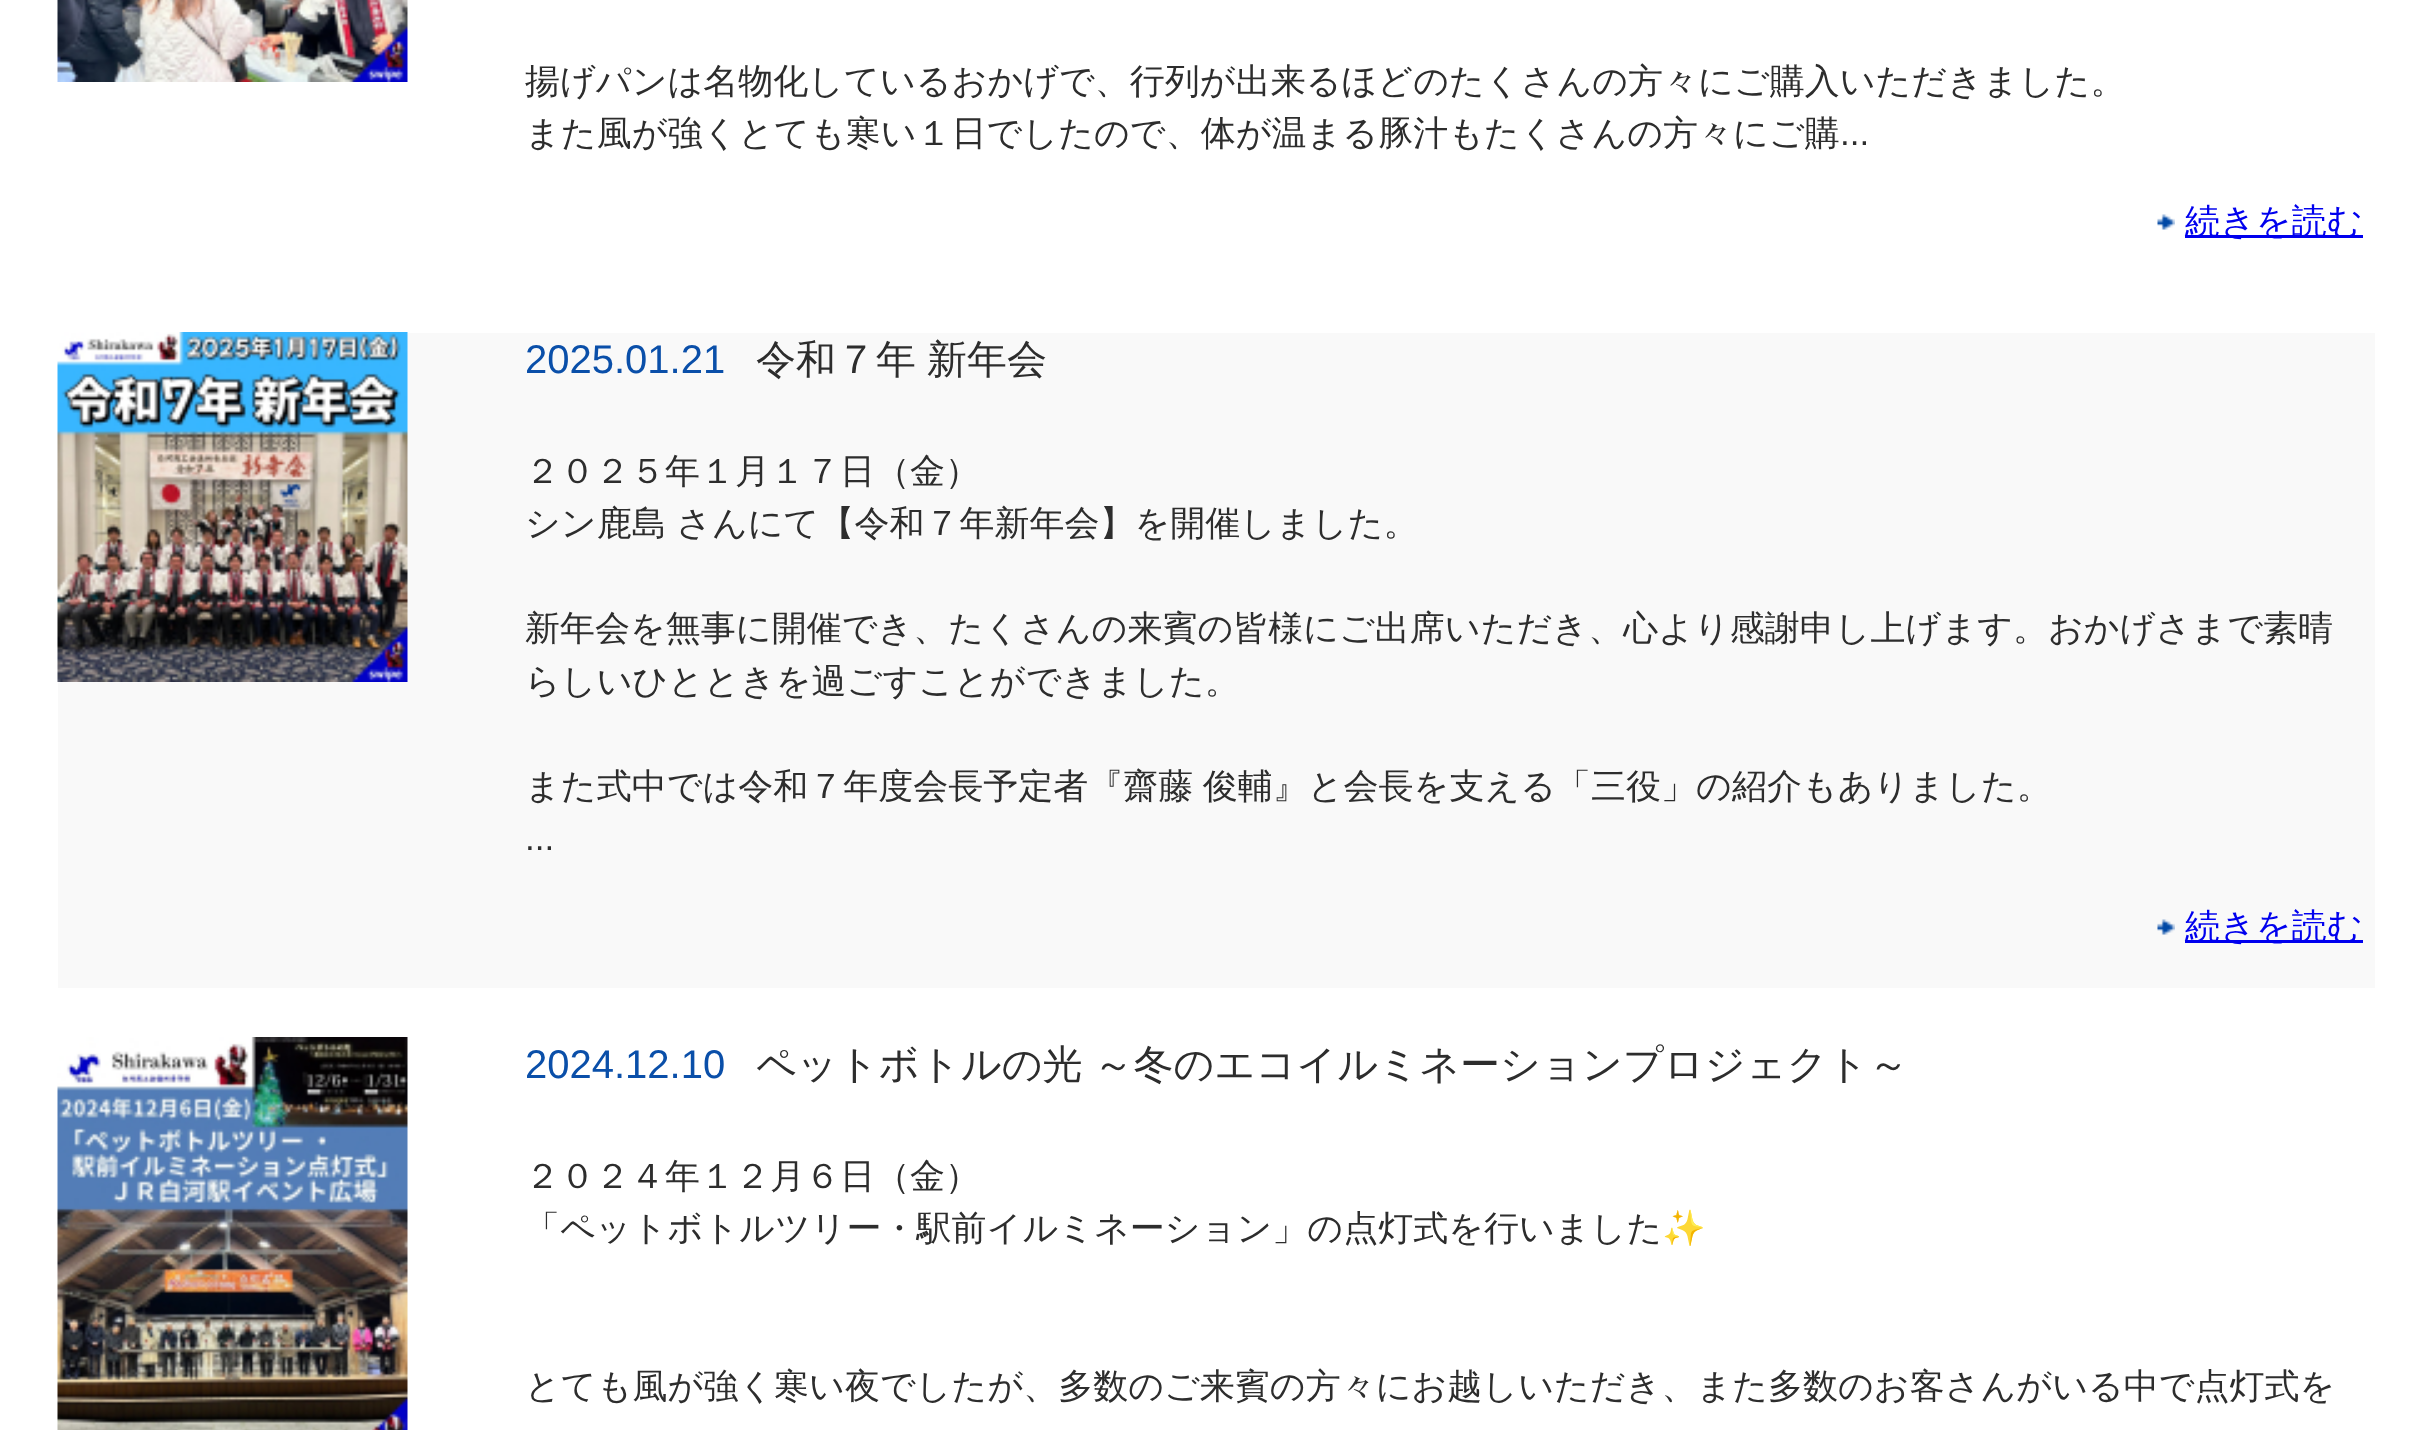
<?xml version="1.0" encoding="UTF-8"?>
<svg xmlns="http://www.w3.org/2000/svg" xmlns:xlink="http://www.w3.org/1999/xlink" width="2432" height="1430">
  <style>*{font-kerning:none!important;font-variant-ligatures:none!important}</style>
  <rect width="100%" height="100%" fill="#ffffff" />
  <image x="57" y="0" width="351" height="82" xlink:href="image1.png" />
  <image x="2157" y="214" width="18" height="16" xlink:href="image2.png" />
  <rect x="2185" y="235" width="178" height="3" fill="#0000ee" />
  <rect x="58" y="333" width="2317" height="655" fill="#f9f9f9" />
  <image x="57" y="332" width="351" height="350" xlink:href="image3.png" />
  <image x="2157" y="919" width="18" height="16" xlink:href="image4.png" />
  <rect x="2185" y="940" width="178" height="3" fill="#0000ee" />
  <image x="57" y="1037" width="351" height="393" xlink:href="image5.png" />
  <text x="525" y="93" style="font-family: WenQuanYi Zen Hei; font-size: 35px; font-weight: 500; fill: #2d2d2d">揚げパンは名物化しているおかげで、行列が出来るほどのたくさんの方々にご購入いただきました。</text>
  <text x="525" y="145" style="font-family: WenQuanYi Zen Hei; font-size: 35px; font-weight: 500; fill: #2d2d2d">また風が強くとても寒い１日でしたので、体が温まる豚汁もたくさんの方々にご購</text>
  <text x="1840" y="145" style="font-family: Liberation Sans; font-size: 35px; fill: #2d2d2d">...</text>
  <text x="2185" y="233" style="font-family: WenQuanYi Zen Hei; font-size: 35px; font-weight: 500; fill: #0000ee">続きを読む</text>
  <text x="525" y="373" style="font-family: Liberation Sans; font-size: 40px; fill: #0a4fa9">2025.01.21</text>
  <text x="756" y="373" word-spacing="-1" style="font-family: WenQuanYi Zen Hei; font-size: 40px; font-weight: 500; fill: #2d2d2d">令和７年 新年会</text>
  <text x="525" y="483" style="font-family: WenQuanYi Zen Hei; font-size: 35px; font-weight: 500; fill: #2d2d2d">２０２５年１月１７日（金）</text>
  <text x="525" y="535" word-spacing="-1" style="font-family: WenQuanYi Zen Hei; font-size: 35px; font-weight: 500; fill: #2d2d2d">シン鹿島 さんにて【令和７年新年会】を開催しました。</text>
  <text x="525" y="640" style="font-family: WenQuanYi Zen Hei; font-size: 35px; font-weight: 500; fill: #2d2d2d">新年会を無事に開催でき、たくさんの来賓の皆様にご出席いただき、心より感謝申し上げます。おかげさまで素晴</text>
  <text x="525" y="693" style="font-family: WenQuanYi Zen Hei; font-size: 35px; font-weight: 500; fill: #2d2d2d">らしいひとときを過ごすことができました。</text>
  <text x="525" y="798" word-spacing="-1" style="font-family: WenQuanYi Zen Hei; font-size: 35px; font-weight: 500; fill: #2d2d2d">また式中では令和７年度会長予定者『齋藤 俊輔』と会長を支える「三役」の紹介もありました。</text>
  <text x="525" y="850" style="font-family: Liberation Sans; font-size: 35px; fill: #2d2d2d">...</text>
  <text x="2185" y="938" style="font-family: WenQuanYi Zen Hei; font-size: 35px; font-weight: 500; fill: #0000ee">続きを読む</text>
  <text x="525" y="1078" style="font-family: Liberation Sans; font-size: 40px; fill: #0a4fa9">2024.12.10</text>
  <text x="756" y="1078" word-spacing="-1" style="font-family: WenQuanYi Zen Hei; font-size: 40px; font-weight: 500; fill: #2d2d2d">ペットボトルの光 ～冬のエコイルミネーションプロジェクト～</text>
  <text x="525" y="1188" style="font-family: WenQuanYi Zen Hei; font-size: 35px; font-weight: 500; fill: #2d2d2d">２０２４年１２月６日（金）</text>
  <text x="525" y="1240" style="font-family: WenQuanYi Zen Hei; font-size: 35px; font-weight: 500; fill: #2d2d2d">「ペットボトルツリー・駅前イルミネーション」の点灯式を行いました</text>
  <text x="1662" y="1240" style="font-family: Noto Color Emoji; font-size: 35px; fill: #2d2d2d">✨</text>
  <text x="525" y="1398" style="font-family: WenQuanYi Zen Hei; font-size: 35px; font-weight: 500; fill: #2d2d2d">とても風が強く寒い夜でしたが、多数のご来賓の方々にお越しいただき、また多数のお客さんがいる中で点灯式を</text>
</svg>
